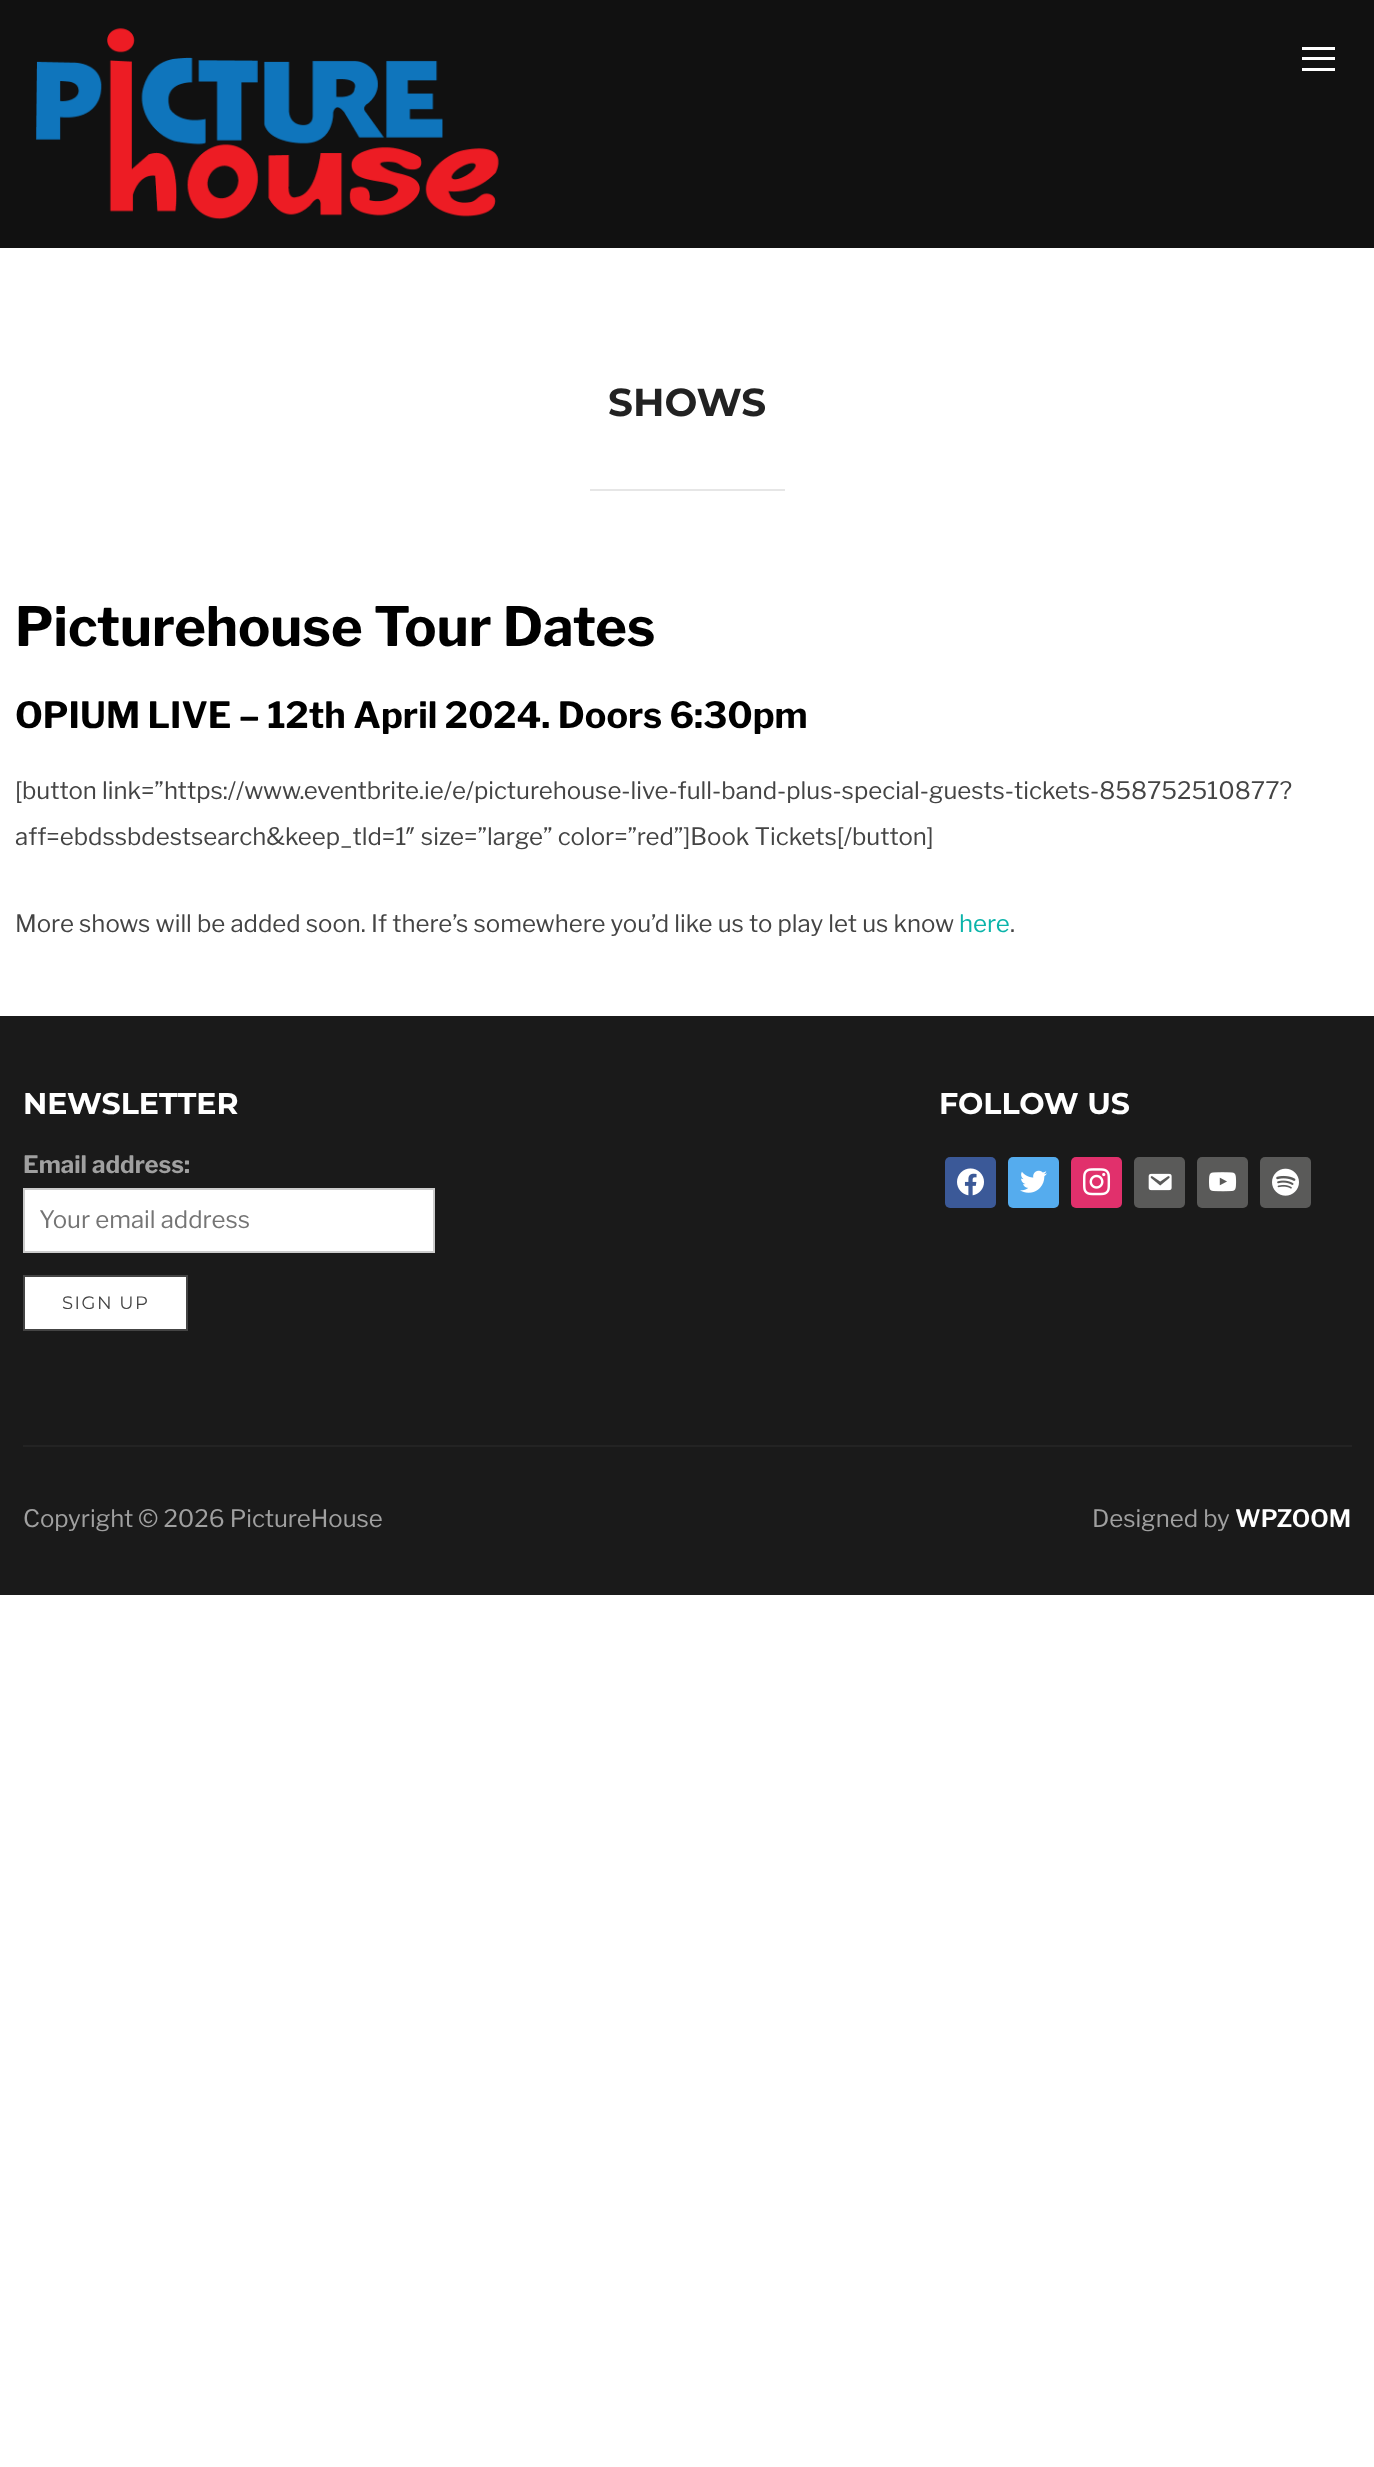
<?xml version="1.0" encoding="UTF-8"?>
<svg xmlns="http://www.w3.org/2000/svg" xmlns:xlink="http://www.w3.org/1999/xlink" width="1374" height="2467">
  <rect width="100%" height="100%" fill="#ffffff" />
  <rect width="1374" height="248" fill="#111111" />
  <image x="36" y="28" width="463" height="192" xlink:href="image1.png" />
  <rect x="1302" y="47" width="33" height="3" fill="#ffffff" />
  <rect x="1302" y="57" width="33" height="3" fill="#ffffff" />
  <rect x="1302" y="68" width="33" height="3" fill="#ffffff" />
  <rect x="590" y="489" width="195" height="2" fill="#e6e6e6" />
  <rect y="1016" width="1374" height="579" fill="#1a1a1a" />
  <rect x="24" y="1189" width="410" height="63" fill="#ffffff" stroke="#cccccc" stroke-width="2" />
  <rect x="24" y="1276" width="163" height="54" fill="#ffffff" stroke="#444444" stroke-width="2" />
  <rect x="945" y="1157" width="51" height="51" rx="5" fill="#3b5998" />
  <image x="957" y="1168" width="27" height="28" xlink:href="image2.png" />
  <rect x="1008" y="1157" width="51" height="51" rx="5" fill="#55acee" />
  <image x="1020" y="1170" width="27" height="23" xlink:href="image3.png" />
  <rect x="1071" y="1157" width="51" height="51" rx="5" fill="#e1306c" />
  <image x="1083" y="1168" width="28" height="28" xlink:href="image4.png" />
  <rect x="1134" y="1157" width="51" height="51" rx="5" fill="#5a5a59" />
  <image x="1148" y="1173" width="24" height="18" xlink:href="image5.png" />
  <rect x="1197" y="1157" width="51" height="51" rx="5" fill="#5a5a59" />
  <image x="1209" y="1172" width="28" height="20" xlink:href="image6.png" />
  <rect x="1260" y="1157" width="51" height="51" rx="5" fill="#5a5a59" />
  <image x="1272" y="1168" width="27" height="28" xlink:href="image7.png" />
  <rect x="23" y="1445" width="1329" height="2" fill="#232323" />
  <text x="608" y="416" style="font-family: Montserrat; font-size: 39px; font-weight: bold; fill: #222222">SHOWS</text>
  <text x="15" y="646" style="font-family: Libre Franklin; font-size: 54px; font-weight: bold; fill: #000000">Picturehouse Tour Dates</text>
  <text x="15" y="728" style="font-family: Libre Franklin; font-size: 36px; font-weight: bold; fill: #000000">OPIUM LIVE – 12th April 2024. Doors 6:30pm</text>
  <text x="15" y="799" style="font-family: Libre Franklin; font-size: 24px; fill: #444444">[button link=”https://www.eventbrite.ie/e/picturehouse-live-full-band-plus-special-guests-tickets-858752510877?</text>
  <text x="15" y="845" style="font-family: Libre Franklin; font-size: 24px; fill: #444444">aff=ebdssbdestsearch&amp;keep_tld=1″ size=”large” color=”red”]Book Tickets[/button]</text>
  <text x="15" y="932" style="font-family: Libre Franklin; font-size: 24px; fill: #444444">More shows will be added soon. If there’s somewhere you’d like us to play let us know</text>
  <text x="959" y="932" style="font-family: Libre Franklin; font-size: 24px; fill: #0bb4aa">here</text>
  <text x="1010" y="932" style="font-family: Libre Franklin; font-size: 24px; fill: #444444">.</text>
  <text x="23" y="1114" style="font-family: Montserrat; font-size: 30px; font-weight: bold; fill: #ffffff">NEWSLETTER</text>
  <text x="23" y="1173" style="font-family: Libre Franklin; font-size: 24px; font-weight: bold; fill: #a0a0a0">Email address:</text>
  <text x="39" y="1228" style="font-family: Libre Franklin; font-size: 24px; fill: #757575">Your email address</text>
  <text x="62" y="1309" style="font-family: Montserrat; font-size: 18px; letter-spacing: 1.5px; fill: #444444">SIGN UP</text>
  <text x="939" y="1114" style="font-family: Montserrat; font-size: 30px; font-weight: bold; fill: #ffffff">FOLLOW US</text>
  <text x="23" y="1527" style="font-family: Libre Franklin; font-size: 24px; fill: #a0a0a0">Copyright © 2026 PictureHouse</text>
  <text x="1092" y="1527" style="font-family: Libre Franklin; font-size: 24px; fill: #a0a0a0">Designed by</text>
  <text x="1235" y="1527" style="font-family: Libre Franklin; font-size: 24px; font-weight: 600; fill: #ffffff">WPZOOM</text>
</svg>
